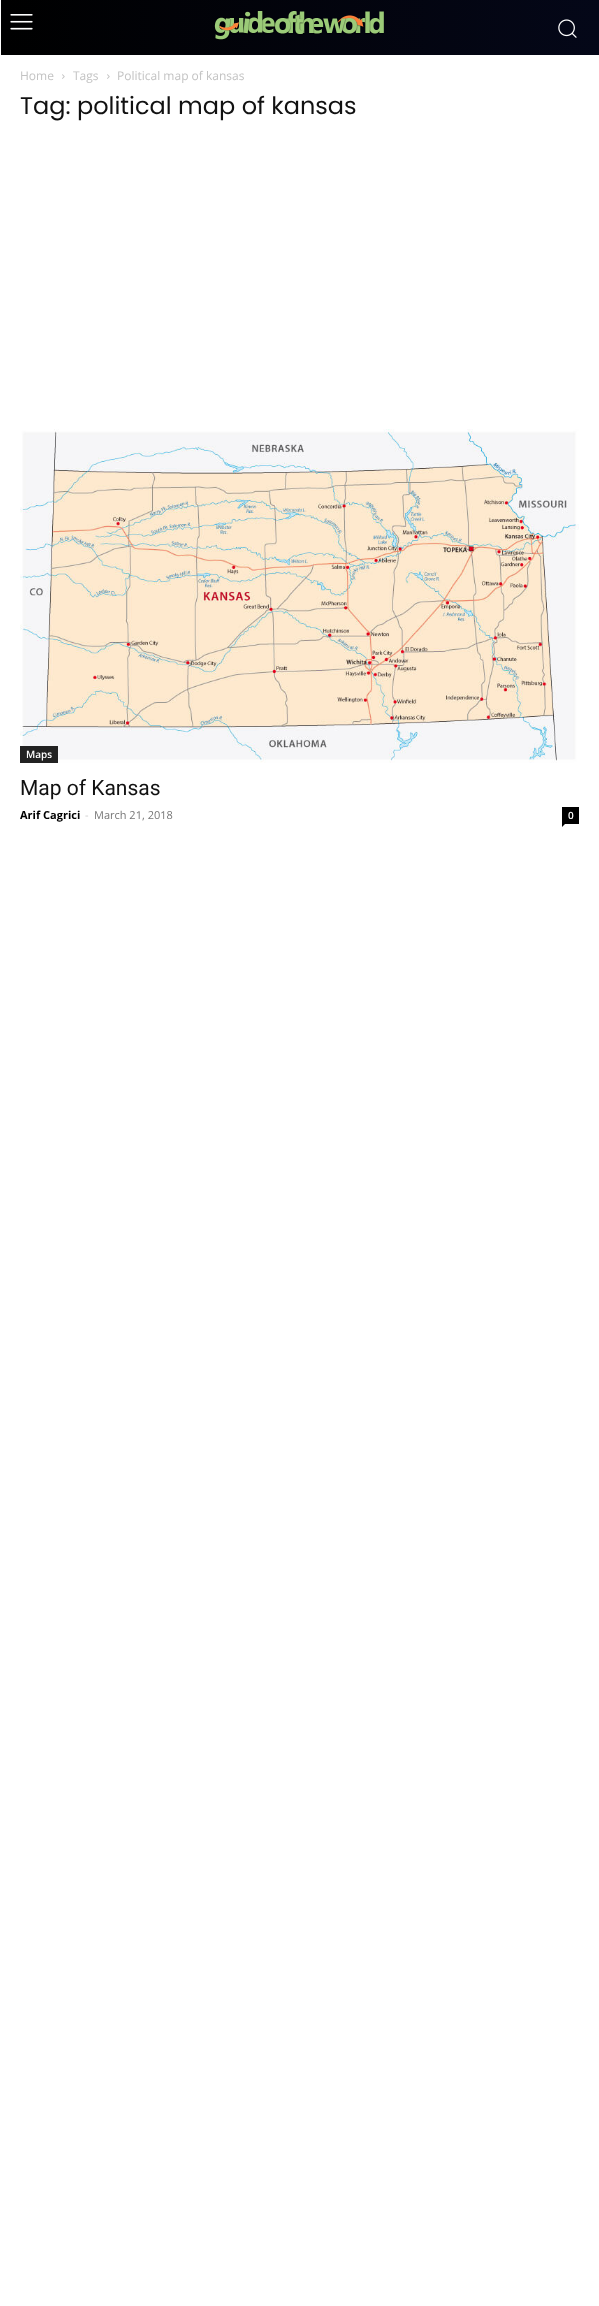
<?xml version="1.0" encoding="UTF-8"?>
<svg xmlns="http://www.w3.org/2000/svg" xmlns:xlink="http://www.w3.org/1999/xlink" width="599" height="2306">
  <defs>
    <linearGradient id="g1" gradientUnits="userSpaceOnUse" x1="0.5" y1="28" x2="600" y2="27"><stop offset="0" stop-color="#000000" /><stop offset="1" stop-color="#040718" /></linearGradient>
  </defs>
  <rect width="100%" height="100%" fill="#ffffff" />
  <rect x="1" width="598" height="55" fill="url(#g1)" />
  <image x="10" y="14" width="23" height="16" xlink:href="image1.png" />
  <image x="214" y="11" width="170" height="29" xlink:href="image2.png" />
  <image x="558" y="19" width="19" height="19" xlink:href="image3.png" />
  <image x="62" y="74" width="3" height="5" xlink:href="image4.png" />
  <image x="107" y="74" width="3" height="5" xlink:href="image4.png" />
  <image x="20" y="429" width="559" height="334" xlink:href="image5.png" />
  <rect x="20" y="746" width="38" height="17" fill="#222222" />
  <rect x="562" y="807" width="17" height="17" fill="#000000" />
  <path d="M 562 824 h 3 l -3 3 z" fill="#000000" />
  <text x="20" y="80" style="font-family: Open Sans; font-size: 12px; fill: #c3c3c3">Home</text>
  <text x="73" y="80" style="font-family: Open Sans; font-size: 12px; fill: #c3c3c3">Tags</text>
  <text x="117" y="80" style="font-family: Open Sans; font-size: 12px; fill: #c3c3c3">Political map of kansas</text>
  <text x="20" y="114" style="font-family: Poppins; font-size: 24px; fill: #111111">Tag: political map of kansas</text>
  <text x="26" y="758" style="font-family: Open Sans; font-size: 10px; font-weight: 600; fill: #ffffff">Maps</text>
  <text x="20" y="795" style="font-family: Roboto; font-size: 21px; fill: #111111">Map of Kansas</text>
  <text x="20" y="819" style="font-family: Open Sans; font-size: 11px; font-weight: bold; fill: #000000">Arif Cagrici</text>
  <text x="85" y="819" style="font-family: Open Sans; font-size: 11px; fill: #cccccc">-</text>
  <text x="94" y="819" style="font-family: Open Sans; font-size: 11px; fill: #767676">March 21, 2018</text>
  <text x="568" y="819" style="font-family: Open Sans; font-size: 10px; font-weight: 600; fill: #ffffff">0</text>
</svg>
